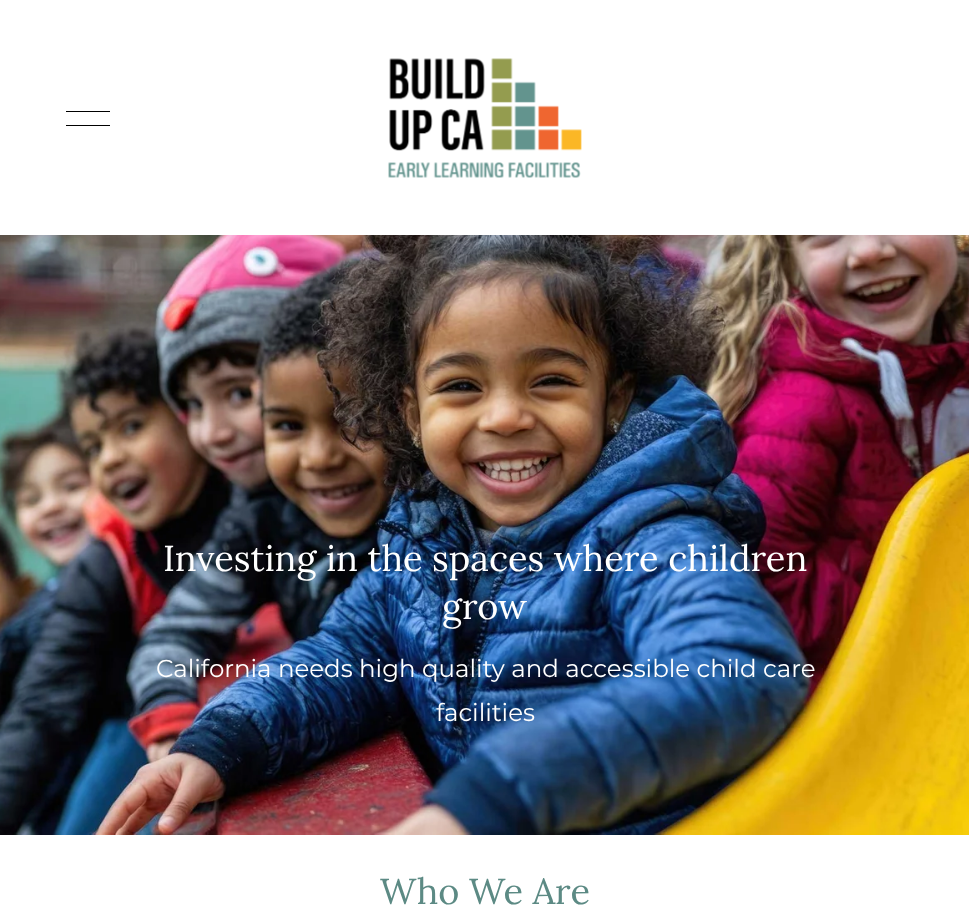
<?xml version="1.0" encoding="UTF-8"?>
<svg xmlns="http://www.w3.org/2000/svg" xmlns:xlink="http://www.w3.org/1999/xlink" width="969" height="916">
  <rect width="100%" height="100%" fill="#ffffff" />
  <rect x="66" y="111" width="44" height="1" fill="#000000" />
  <rect x="66" y="125" width="44" height="1" fill="#000000" />
  <image x="388" y="58" width="194" height="120" xlink:href="image1.png" />
  <image x="0" y="235" width="969" height="600" xlink:href="image2.png" />
  <text x="163" y="571" style="font-family: Lora; font-size: 36.1px; fill: #ffffff">Investing in the spaces where children</text>
  <text x="442" y="619" style="font-family: Lora; font-size: 36.1px; fill: #ffffff">grow</text>
  <text x="156" y="677" style="font-family: Montserrat; font-size: 24.5px; fill: #ffffff">California needs high quality and accessible child care</text>
  <text x="436" y="721" style="font-family: Montserrat; font-size: 24.5px; fill: #ffffff">facilities</text>
  <text x="380" y="904" style="font-family: Lora; font-size: 36.1px; fill: #5c8a84">Who We Are</text>
</svg>
